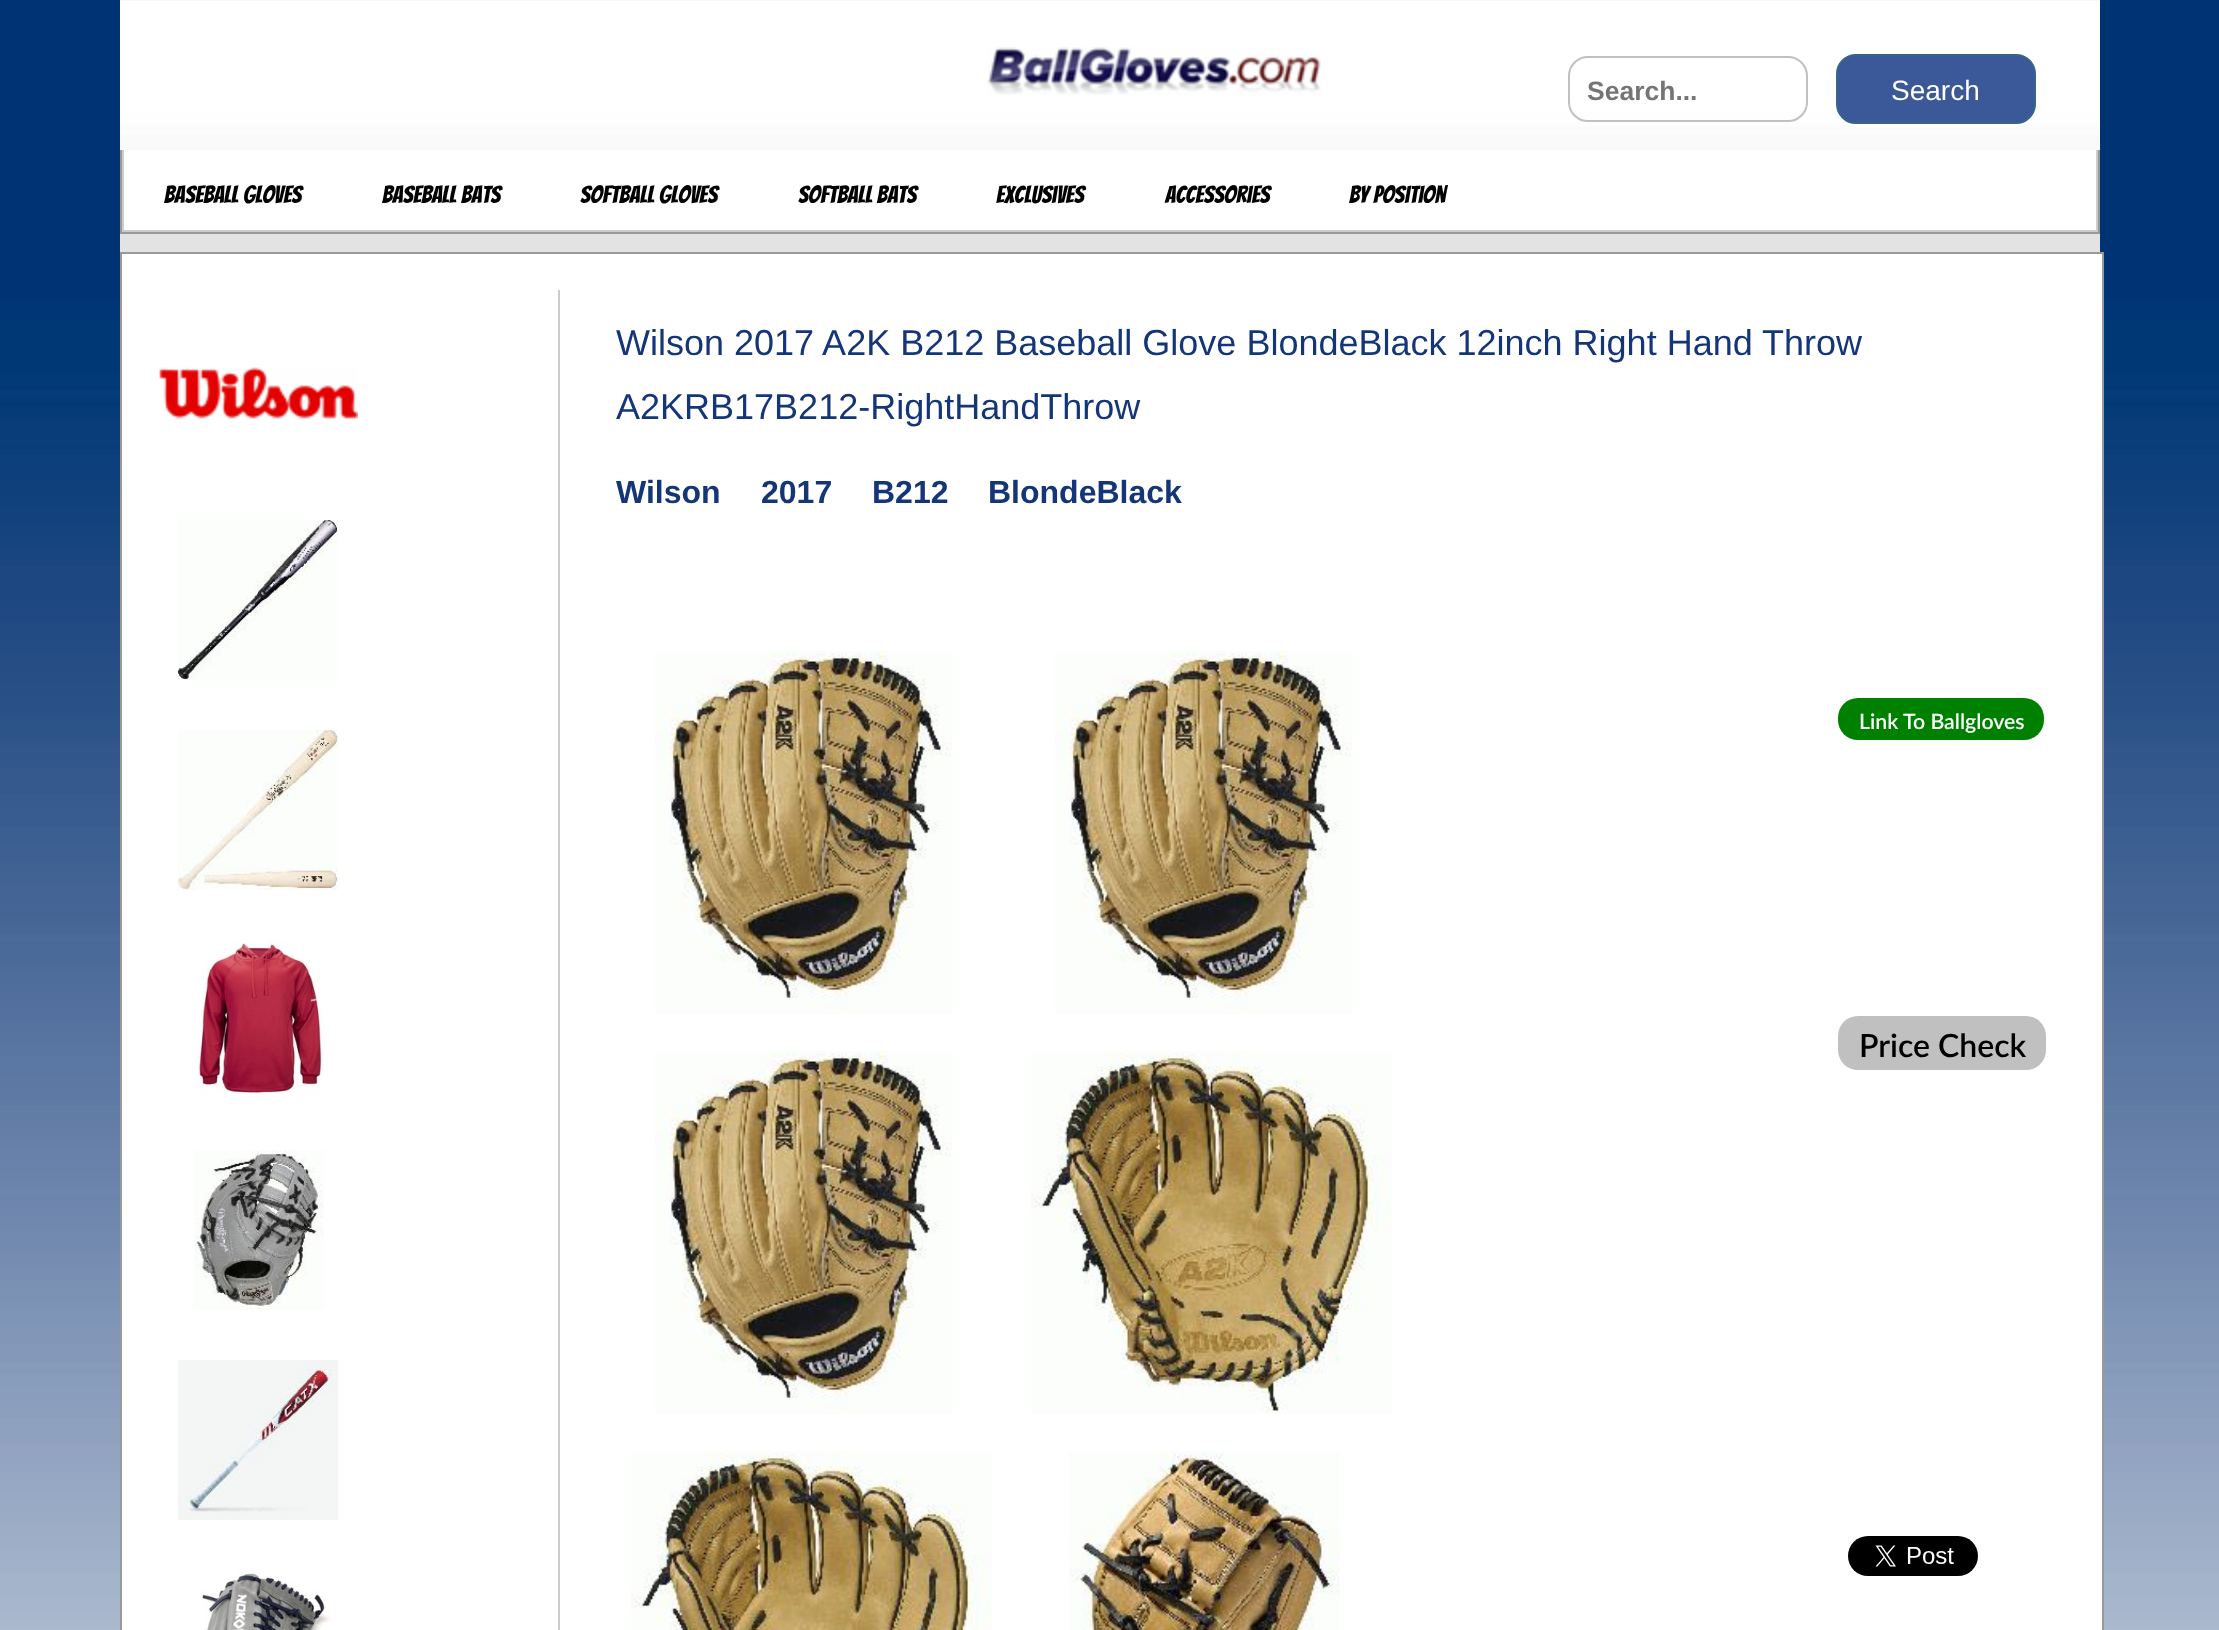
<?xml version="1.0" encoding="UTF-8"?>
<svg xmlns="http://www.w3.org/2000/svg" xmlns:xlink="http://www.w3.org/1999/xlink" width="2219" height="1630">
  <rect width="100%" height="100%" fill="#ffffff" />
  <image x="0" y="0" width="2219" height="1630" xlink:href="image1.png" />
  <image x="120" y="0" width="1980" height="150" xlink:href="image2.png" />
  <rect x="120" y="234" width="1980" height="18" fill="#e3e3e3" />
  <image x="987" y="47" width="334" height="48" xlink:href="image3.png" />
  <rect x="1569" y="57" width="238" height="64" rx="19" fill="none" stroke="#c0c0c0" stroke-width="2" />
  <rect x="1837" y="55" width="198" height="68" rx="19" fill="#3b5998" stroke="#36648b" stroke-width="2" />
  <rect x="2098" y="150" width="2" height="84" fill="#999999" />
  <rect x="120" y="232" width="1980" height="2" fill="#999999" />
  <rect x="120" y="150" width="2" height="84" fill="#999999" />
  <rect x="124" y="150" width="1972" height="80" fill="#ffffff" />
  <rect x="2096" y="150" width="2" height="82" fill="#cccccc" />
  <rect x="122" y="230" width="1976" height="2" fill="#cccccc" />
  <rect x="122" y="150" width="2" height="82" fill="#cccccc" />
  <rect x="121" y="253" width="1982" height="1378" fill="#ffffff" stroke="#999999" stroke-width="2" />
  <image x="159" y="367" width="199" height="52" xlink:href="image4.png" />
  <image x="178" y="520" width="160" height="160" xlink:href="image5.png" />
  <image x="178" y="730" width="160" height="160" xlink:href="image6.png" />
  <image x="198" y="940" width="125" height="154" xlink:href="image7.png" />
  <image x="194" y="1150" width="130" height="160" xlink:href="image8.png" />
  <image x="178" y="1360" width="160" height="160" xlink:href="image9.png" />
  <image x="202" y="1570" width="130" height="60" xlink:href="image10.png" />
  <rect x="558" y="290" width="2" height="1340" fill="#cccccc" />
  <image x="655" y="651" width="297" height="363" xlink:href="image11.png" />
  <image x="1055" y="651" width="297" height="363" xlink:href="image11.png" />
  <image x="655" y="1051" width="297" height="363" xlink:href="image11.png" />
  <image x="1031" y="1051" width="361" height="363" xlink:href="image12.png" />
  <image x="631" y="1451" width="361" height="179" xlink:href="image13.png" />
  <image x="1069" y="1451" width="271" height="179" xlink:href="image14.png" />
  <rect x="1838" y="698" width="206" height="42" rx="20" fill="#008000" />
  <rect x="1838" y="1016" width="208" height="54" rx="20" fill="#c0c0c0" />
  <image x="1848" y="1536" width="130" height="40" xlink:href="image15.png" />
  <text x="1587" y="100" style="font-family: Liberation Sans; font-size: 26.5px; font-weight: bold; fill: #757575">Search...</text>
  <text x="1891" y="100" style="font-family: Liberation Sans; font-size: 28px; fill: #ffffff">Search</text>
  <text x="164" y="203" style="font-family: Bangers; font-size: 24px; fill: #000000">Baseball Gloves</text>
  <text x="382" y="203" style="font-family: Bangers; font-size: 24px; fill: #000000">Baseball Bats</text>
  <text x="580" y="203" style="font-family: Bangers; font-size: 24px; fill: #000000">Softball Gloves</text>
  <text x="798" y="203" style="font-family: Bangers; font-size: 24px; fill: #000000">Softball Bats</text>
  <text x="996" y="203" style="font-family: Bangers; font-size: 24px; fill: #000000">Exclusives</text>
  <text x="1165" y="203" style="font-family: Bangers; font-size: 24px; fill: #000000">Accessories</text>
  <text x="1349" y="203" style="font-family: Bangers; font-size: 24px; fill: #000000">By Position</text>
  <text x="616" y="355" style="font-family: Liberation Sans; font-size: 36px; fill: #143578">Wilson 2017 A2K B212 Baseball Glove BlondeBlack 12inch Right Hand Throw</text>
  <text x="616" y="419" style="font-family: Liberation Sans; font-size: 36px; fill: #143578">A2KRB17B212-RightHandThrow</text>
  <text x="616" y="503" style="font-family: Liberation Sans; font-size: 32px; font-weight: bold; fill: #143578">Wilson</text>
  <text x="761" y="503" style="font-family: Liberation Sans; font-size: 32px; font-weight: bold; fill: #143578">2017</text>
  <text x="872" y="503" style="font-family: Liberation Sans; font-size: 32px; font-weight: bold; fill: #143578">B212</text>
  <text x="988" y="503" style="font-family: Liberation Sans; font-size: 32px; font-weight: bold; fill: #143578">BlondeBlack</text>
  <text x="1859" y="729" style="font-family: Lato; font-size: 21.25px; font-weight: 600; fill: #ffffff">Link To Ballgloves</text>
  <text x="1859" y="1057" style="font-family: Lato; font-size: 32px; font-weight: 600; fill: #000000">Price Check</text>
</svg>
